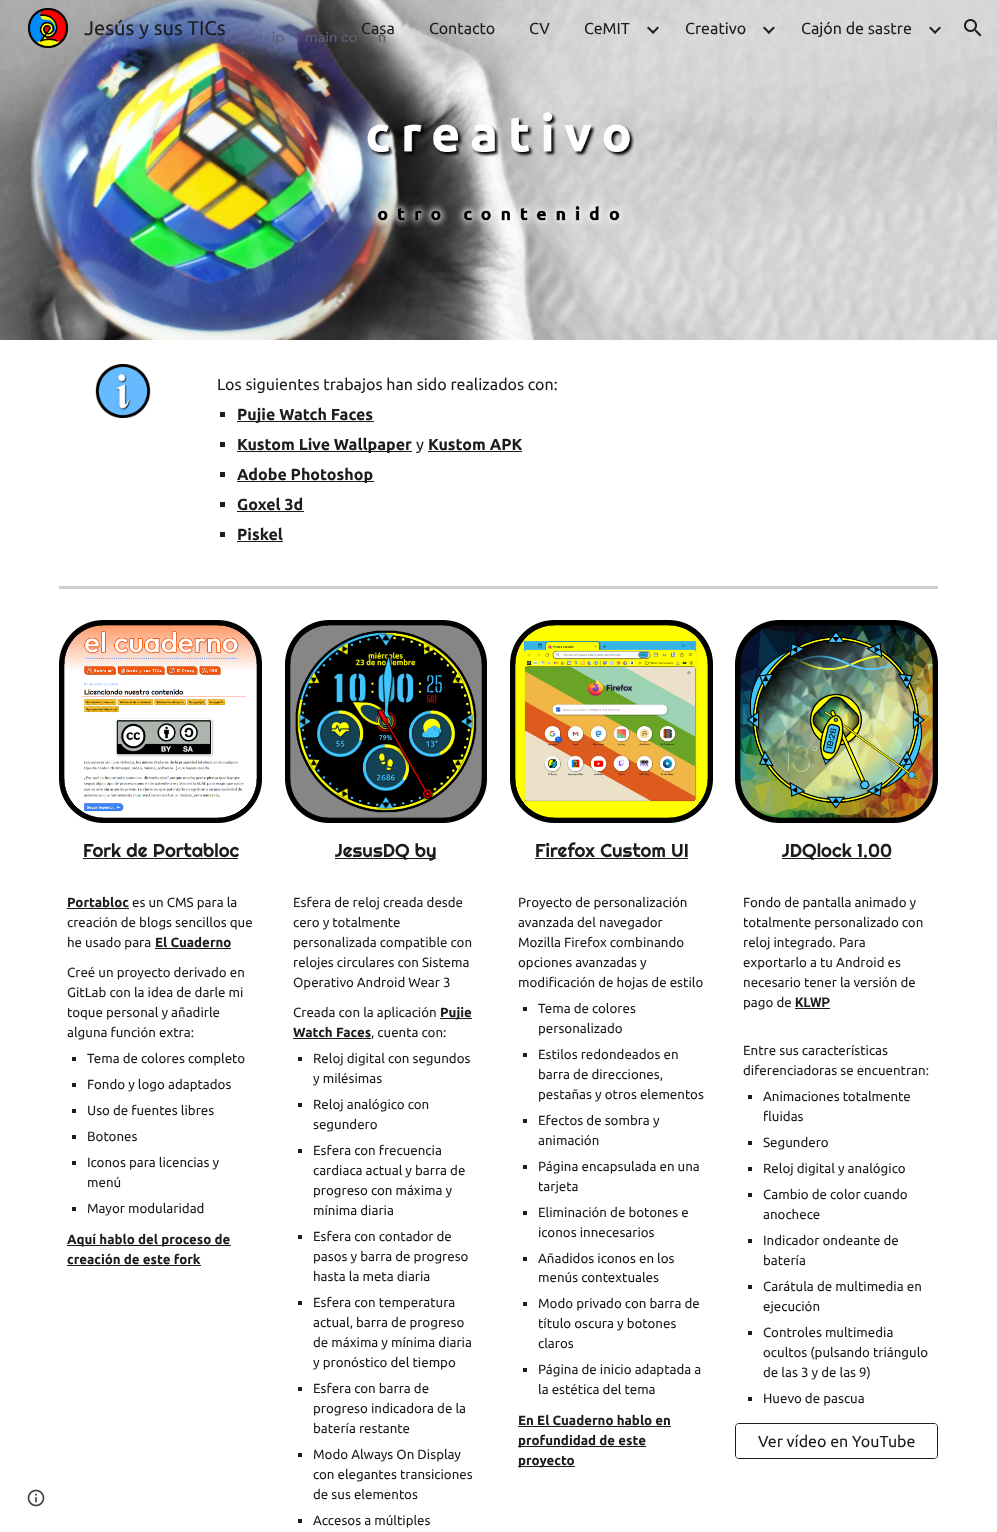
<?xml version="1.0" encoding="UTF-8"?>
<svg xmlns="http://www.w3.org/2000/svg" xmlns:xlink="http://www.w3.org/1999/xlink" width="997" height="1532">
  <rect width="100%" height="100%" fill="#ffffff" />
  <image x="0" y="0" width="997" height="340" xlink:href="image7.png" />
  <image x="28" y="8" width="40" height="40" xlink:href="image1.png" />
  <image x="647" y="26" width="12" height="8" xlink:href="image2.png" />
  <image x="763" y="26" width="12" height="8" xlink:href="image3.png" />
  <image x="929" y="26" width="12" height="8" xlink:href="image4.png" />
  <image x="964" y="19" width="18" height="18" xlink:href="image5.png" />
  <image x="27" y="1489" width="18" height="18" xlink:href="image6.png" />
  <image x="367" y="112" width="268" height="45" xlink:href="image8.png" />
  <image x="371" y="201" width="253" height="27" xlink:href="image9.png" />
  <image x="95" y="364" width="56" height="54" xlink:href="image10.png" />
  <rect x="220" y="412" width="5" height="5" fill="#1c1c1c" />
  <rect x="237" y="421" width="137" height="1" fill="#1c1c1c" />
  <rect x="220" y="442" width="5" height="5" fill="#1c1c1c" />
  <rect x="237" y="451" width="175" height="1" fill="#1c1c1c" />
  <rect x="428" y="451" width="94" height="1" fill="#1c1c1c" />
  <rect x="220" y="472" width="5" height="5" fill="#1c1c1c" />
  <rect x="237" y="481" width="137" height="1" fill="#1c1c1c" />
  <rect x="220" y="502" width="5" height="5" fill="#1c1c1c" />
  <rect x="237" y="511" width="67" height="1" fill="#1c1c1c" />
  <rect x="220" y="532" width="5" height="5" fill="#1c1c1c" />
  <rect x="237" y="541" width="46" height="1" fill="#1c1c1c" />
  <rect x="59" y="586" width="879" height="3" fill="#cccccc" />
  <image x="59" y="620" width="203" height="203" xlink:href="image11.png" />
  <rect x="83" y="858" width="155" height="1" fill="#1c1c1c" />
  <rect x="67" y="908" width="62" height="1" fill="#1c1c1c" />
  <rect x="155" y="948" width="76" height="1" fill="#1c1c1c" />
  <rect x="72" y="1057" width="4" height="4" fill="#1c1c1c" />
  <rect x="72" y="1083" width="4" height="4" fill="#1c1c1c" />
  <rect x="72" y="1109" width="4" height="4" fill="#1c1c1c" />
  <rect x="72" y="1135" width="4" height="4" fill="#1c1c1c" />
  <rect x="72" y="1161" width="4" height="4" fill="#1c1c1c" />
  <rect x="72" y="1207" width="4" height="4" fill="#1c1c1c" />
  <rect x="67" y="1245" width="164" height="1" fill="#1c1c1c" />
  <rect x="67" y="1265" width="134" height="1" fill="#1c1c1c" />
  <image x="285" y="620" width="202" height="203" xlink:href="image12.png" />
  <rect x="335" y="858" width="101" height="1" fill="#1c1c1c" />
  <rect x="440" y="1018" width="32" height="1" fill="#1c1c1c" />
  <rect x="293" y="1038" width="78" height="1" fill="#1c1c1c" />
  <rect x="298" y="1057" width="4" height="4" fill="#1c1c1c" />
  <rect x="298" y="1103" width="4" height="4" fill="#1c1c1c" />
  <rect x="298" y="1149" width="4" height="4" fill="#1c1c1c" />
  <rect x="298" y="1235" width="4" height="4" fill="#1c1c1c" />
  <rect x="298" y="1301" width="4" height="4" fill="#1c1c1c" />
  <rect x="298" y="1387" width="4" height="4" fill="#1c1c1c" />
  <rect x="298" y="1453" width="4" height="4" fill="#1c1c1c" />
  <rect x="298" y="1519" width="4" height="4" fill="#1c1c1c" />
  <image x="510" y="620" width="203" height="203" xlink:href="image13.png" />
  <rect x="535" y="858" width="153" height="1" fill="#1c1c1c" />
  <rect x="523" y="1007" width="4" height="4" fill="#1c1c1c" />
  <rect x="523" y="1053" width="4" height="4" fill="#1c1c1c" />
  <rect x="523" y="1119" width="4" height="4" fill="#1c1c1c" />
  <rect x="523" y="1165" width="4" height="4" fill="#1c1c1c" />
  <rect x="523" y="1211" width="4" height="4" fill="#1c1c1c" />
  <rect x="523" y="1257" width="4" height="4" fill="#1c1c1c" />
  <rect x="523" y="1302" width="4" height="4" fill="#1c1c1c" />
  <rect x="523" y="1368" width="4" height="4" fill="#1c1c1c" />
  <rect x="518" y="1426" width="153" height="1" fill="#1c1c1c" />
  <rect x="518" y="1446" width="128" height="1" fill="#1c1c1c" />
  <rect x="518" y="1466" width="57" height="1" fill="#1c1c1c" />
  <image x="735" y="620" width="203" height="203" xlink:href="image14.png" />
  <rect x="782" y="858" width="109" height="1" fill="#1c1c1c" />
  <rect x="795" y="1008" width="35" height="1" fill="#1c1c1c" />
  <rect x="748" y="1095" width="4" height="4" fill="#1c1c1c" />
  <rect x="748" y="1141" width="4" height="4" fill="#1c1c1c" />
  <rect x="748" y="1167" width="4" height="4" fill="#1c1c1c" />
  <rect x="748" y="1193" width="4" height="4" fill="#1c1c1c" />
  <rect x="748" y="1239" width="4" height="4" fill="#1c1c1c" />
  <rect x="748" y="1285" width="4" height="4" fill="#1c1c1c" />
  <rect x="748" y="1331" width="4" height="4" fill="#1c1c1c" />
  <rect x="748" y="1397" width="4" height="4" fill="#1c1c1c" />
  <rect x="735.5" y="1423.5" width="202" height="35" rx="3.5" fill="none" stroke="#1c1c1c" />
  <rect x="736" y="1424" width="201" height="34" rx="3" fill="#ffffff" />
  <text x="84" y="35" style="font-family: Ubuntu; font-size: 20px; fill: #1c1c1c">Jesús y sus TICs</text>
  <text x="361" y="34" style="font-family: Ubuntu; font-size: 16px; fill: #1c1c1c">Casa</text>
  <text x="429" y="34" style="font-family: Ubuntu; font-size: 16px; fill: #1c1c1c">Contacto</text>
  <text x="529" y="34" style="font-family: Ubuntu; font-size: 16px; fill: #1c1c1c">CV</text>
  <text x="584" y="34" style="font-family: Ubuntu; font-size: 16px; fill: #1c1c1c">CeMIT</text>
  <text x="685" y="34" style="font-family: Ubuntu; font-size: 16px; fill: #1c1c1c">Creativo</text>
  <text x="801" y="34" style="font-family: Ubuntu; font-size: 16px; fill: #1c1c1c">Cajón de sastre</text>
  <text x="217" y="390" style="font-family: Ubuntu; font-size: 16px; fill: #1c1c1c">Los siguientes trabajos han sido realizados con:</text>
  <text x="237" y="420" style="font-family: Ubuntu; font-size: 16px; font-weight: bold; fill: #1c1c1c">Pujie Watch Faces</text>
  <text x="237" y="450" style="font-family: Ubuntu; font-size: 16px; font-weight: bold; fill: #1c1c1c">Kustom Live Wallpaper</text>
  <text x="416" y="450" style="font-family: Ubuntu; font-size: 16px; fill: #1c1c1c">y</text>
  <text x="428" y="450" style="font-family: Ubuntu; font-size: 16px; font-weight: bold; fill: #1c1c1c">Kustom APK</text>
  <text x="237" y="480" style="font-family: Ubuntu; font-size: 16px; font-weight: bold; fill: #1c1c1c">Adobe Photoshop</text>
  <text x="237" y="510" style="font-family: Ubuntu; font-size: 16px; font-weight: bold; fill: #1c1c1c">Goxel 3d</text>
  <text x="237" y="540" style="font-family: Ubuntu; font-size: 16px; font-weight: bold; fill: #1c1c1c">Piskel</text>
  <text x="83" y="857" style="font-family: Righteous; font-size: 18.75px; fill: #1c1c1c">Fork de Portabloc</text>
  <text x="67" y="907" style="font-family: Ubuntu; font-size: 13.3px; font-weight: bold; fill: #1c1c1c">Portabloc</text>
  <text x="132" y="907" style="font-family: Ubuntu; font-size: 13.3px; fill: #1c1c1c">es un CMS para la</text>
  <text x="67" y="927" style="font-family: Ubuntu; font-size: 13.3px; fill: #1c1c1c">creación de blogs sencillos que</text>
  <text x="67" y="947" style="font-family: Ubuntu; font-size: 13.3px; fill: #1c1c1c">he usado para</text>
  <text x="155" y="947" style="font-family: Ubuntu; font-size: 13.3px; font-weight: bold; fill: #1c1c1c">El Cuaderno</text>
  <text x="67" y="977" style="font-family: Ubuntu; font-size: 13.3px; fill: #1c1c1c">Creé un proyecto derivado en</text>
  <text x="67" y="997" style="font-family: Ubuntu; font-size: 13.3px; fill: #1c1c1c">GitLab con la idea de darle mi</text>
  <text x="67" y="1017" style="font-family: Ubuntu; font-size: 13.3px; fill: #1c1c1c">toque personal y añadirle</text>
  <text x="67" y="1037" style="font-family: Ubuntu; font-size: 13.3px; fill: #1c1c1c">alguna función extra:</text>
  <text x="87" y="1063" style="font-family: Ubuntu; font-size: 13.3px; fill: #1c1c1c">Tema de colores completo</text>
  <text x="87" y="1089" style="font-family: Ubuntu; font-size: 13.3px; fill: #1c1c1c">Fondo y logo adaptados</text>
  <text x="87" y="1115" style="font-family: Ubuntu; font-size: 13.3px; fill: #1c1c1c">Uso de fuentes libres</text>
  <text x="87" y="1141" style="font-family: Ubuntu; font-size: 13.3px; fill: #1c1c1c">Botones</text>
  <text x="87" y="1167" style="font-family: Ubuntu; font-size: 13.3px; fill: #1c1c1c">Iconos para licencias y</text>
  <text x="87" y="1187" style="font-family: Ubuntu; font-size: 13.3px; fill: #1c1c1c">menú</text>
  <text x="87" y="1213" style="font-family: Ubuntu; font-size: 13.3px; fill: #1c1c1c">Mayor modularidad</text>
  <text x="67" y="1244" style="font-family: Ubuntu; font-size: 13.3px; font-weight: bold; fill: #1c1c1c">Aquí hablo del proceso de</text>
  <text x="67" y="1264" style="font-family: Ubuntu; font-size: 13.3px; font-weight: bold; fill: #1c1c1c">creación de este fork</text>
  <text x="335" y="857" style="font-family: Righteous; font-size: 18.75px; fill: #1c1c1c">JesusDQ by</text>
  <text x="293" y="907" style="font-family: Ubuntu; font-size: 13.3px; fill: #1c1c1c">Esfera de reloj creada desde</text>
  <text x="293" y="927" style="font-family: Ubuntu; font-size: 13.3px; fill: #1c1c1c">cero y totalmente</text>
  <text x="293" y="947" style="font-family: Ubuntu; font-size: 13.3px; fill: #1c1c1c">personalizada compatible con</text>
  <text x="293" y="967" style="font-family: Ubuntu; font-size: 13.3px; fill: #1c1c1c">relojes circulares con Sistema</text>
  <text x="293" y="987" style="font-family: Ubuntu; font-size: 13.3px; fill: #1c1c1c">Operativo Android Wear 3</text>
  <text x="293" y="1017" style="font-family: Ubuntu; font-size: 13.3px; fill: #1c1c1c">Creada con la aplicación</text>
  <text x="440" y="1017" style="font-family: Ubuntu; font-size: 13.3px; font-weight: bold; fill: #1c1c1c">Pujie</text>
  <text x="293" y="1037" style="font-family: Ubuntu; font-size: 13.3px; font-weight: bold; fill: #1c1c1c">Watch Faces</text>
  <text x="371" y="1037" style="font-family: Ubuntu; font-size: 13.3px; fill: #1c1c1c">, cuenta con:</text>
  <text x="313" y="1063" style="font-family: Ubuntu; font-size: 13.3px; fill: #1c1c1c">Reloj digital con segundos</text>
  <text x="313" y="1083" style="font-family: Ubuntu; font-size: 13.3px; fill: #1c1c1c">y milésimas</text>
  <text x="313" y="1109" style="font-family: Ubuntu; font-size: 13.3px; fill: #1c1c1c">Reloj analógico con</text>
  <text x="313" y="1129" style="font-family: Ubuntu; font-size: 13.3px; fill: #1c1c1c">segundero</text>
  <text x="313" y="1155" style="font-family: Ubuntu; font-size: 13.3px; fill: #1c1c1c">Esfera con frecuencia</text>
  <text x="313" y="1175" style="font-family: Ubuntu; font-size: 13.3px; fill: #1c1c1c">cardiaca actual y barra de</text>
  <text x="313" y="1195" style="font-family: Ubuntu; font-size: 13.3px; fill: #1c1c1c">progreso con máxima y</text>
  <text x="313" y="1215" style="font-family: Ubuntu; font-size: 13.3px; fill: #1c1c1c">mínima diaria</text>
  <text x="313" y="1241" style="font-family: Ubuntu; font-size: 13.3px; fill: #1c1c1c">Esfera con contador de</text>
  <text x="313" y="1261" style="font-family: Ubuntu; font-size: 13.3px; fill: #1c1c1c">pasos y barra de progreso</text>
  <text x="313" y="1281" style="font-family: Ubuntu; font-size: 13.3px; fill: #1c1c1c">hasta la meta diaria</text>
  <text x="313" y="1307" style="font-family: Ubuntu; font-size: 13.3px; fill: #1c1c1c">Esfera con temperatura</text>
  <text x="313" y="1327" style="font-family: Ubuntu; font-size: 13.3px; fill: #1c1c1c">actual, barra de progreso</text>
  <text x="313" y="1347" style="font-family: Ubuntu; font-size: 13.3px; fill: #1c1c1c">de máxima y mínima diaria</text>
  <text x="313" y="1367" style="font-family: Ubuntu; font-size: 13.3px; fill: #1c1c1c">y pronóstico del tiempo</text>
  <text x="313" y="1393" style="font-family: Ubuntu; font-size: 13.3px; fill: #1c1c1c">Esfera con barra de</text>
  <text x="313" y="1413" style="font-family: Ubuntu; font-size: 13.3px; fill: #1c1c1c">progreso indicadora de la</text>
  <text x="313" y="1433" style="font-family: Ubuntu; font-size: 13.3px; fill: #1c1c1c">batería restante</text>
  <text x="313" y="1459" style="font-family: Ubuntu; font-size: 13.3px; fill: #1c1c1c">Modo Always On Display</text>
  <text x="313" y="1479" style="font-family: Ubuntu; font-size: 13.3px; fill: #1c1c1c">con elegantes transiciones</text>
  <text x="313" y="1499" style="font-family: Ubuntu; font-size: 13.3px; fill: #1c1c1c">de sus elementos</text>
  <text x="313" y="1525" style="font-family: Ubuntu; font-size: 13.3px; fill: #1c1c1c">Accesos a múltiples</text>
  <text x="535" y="857" style="font-family: Righteous; font-size: 18.75px; fill: #1c1c1c">Firefox Custom UI</text>
  <text x="518" y="907" style="font-family: Ubuntu; font-size: 13.3px; fill: #1c1c1c">Proyecto de personalización</text>
  <text x="518" y="927" style="font-family: Ubuntu; font-size: 13.3px; fill: #1c1c1c">avanzada del navegador</text>
  <text x="518" y="947" style="font-family: Ubuntu; font-size: 13.3px; fill: #1c1c1c">Mozilla Firefox combinando</text>
  <text x="518" y="967" style="font-family: Ubuntu; font-size: 13.3px; fill: #1c1c1c">opciones avanzadas y</text>
  <text x="518" y="987" style="font-family: Ubuntu; font-size: 13.3px; fill: #1c1c1c">modificación de hojas de estilo</text>
  <text x="538" y="1013" style="font-family: Ubuntu; font-size: 13.3px; fill: #1c1c1c">Tema de colores</text>
  <text x="538" y="1033" style="font-family: Ubuntu; font-size: 13.3px; fill: #1c1c1c">personalizado</text>
  <text x="538" y="1059" style="font-family: Ubuntu; font-size: 13.3px; fill: #1c1c1c">Estilos redondeados en</text>
  <text x="538" y="1079" style="font-family: Ubuntu; font-size: 13.3px; fill: #1c1c1c">barra de direcciones,</text>
  <text x="538" y="1099" style="font-family: Ubuntu; font-size: 13.3px; fill: #1c1c1c">pestañas y otros elementos</text>
  <text x="538" y="1125" style="font-family: Ubuntu; font-size: 13.3px; fill: #1c1c1c">Efectos de sombra y</text>
  <text x="538" y="1145" style="font-family: Ubuntu; font-size: 13.3px; fill: #1c1c1c">animación</text>
  <text x="538" y="1171" style="font-family: Ubuntu; font-size: 13.3px; fill: #1c1c1c">Página encapsulada en una</text>
  <text x="538" y="1191" style="font-family: Ubuntu; font-size: 13.3px; fill: #1c1c1c">tarjeta</text>
  <text x="538" y="1217" style="font-family: Ubuntu; font-size: 13.3px; fill: #1c1c1c">Eliminación de botones e</text>
  <text x="538" y="1237" style="font-family: Ubuntu; font-size: 13.3px; fill: #1c1c1c">iconos innecesarios</text>
  <text x="538" y="1263" style="font-family: Ubuntu; font-size: 13.3px; fill: #1c1c1c">Añadidos iconos en los</text>
  <text x="538" y="1282" style="font-family: Ubuntu; font-size: 13.3px; fill: #1c1c1c">menús contextuales</text>
  <text x="538" y="1308" style="font-family: Ubuntu; font-size: 13.3px; fill: #1c1c1c">Modo privado con barra de</text>
  <text x="538" y="1328" style="font-family: Ubuntu; font-size: 13.3px; fill: #1c1c1c">título oscura y botones</text>
  <text x="538" y="1348" style="font-family: Ubuntu; font-size: 13.3px; fill: #1c1c1c">claros</text>
  <text x="538" y="1374" style="font-family: Ubuntu; font-size: 13.3px; fill: #1c1c1c">Página de inicio adaptada a</text>
  <text x="538" y="1394" style="font-family: Ubuntu; font-size: 13.3px; fill: #1c1c1c">la estética del tema</text>
  <text x="518" y="1425" style="font-family: Ubuntu; font-size: 13.3px; font-weight: bold; fill: #1c1c1c">En El Cuaderno hablo en</text>
  <text x="518" y="1445" style="font-family: Ubuntu; font-size: 13.3px; font-weight: bold; fill: #1c1c1c">profundidad de este</text>
  <text x="518" y="1465" style="font-family: Ubuntu; font-size: 13.3px; font-weight: bold; fill: #1c1c1c">proyecto</text>
  <text x="782" y="857" style="font-family: Righteous; font-size: 18.75px; fill: #1c1c1c">JDQlock 1.00</text>
  <text x="743" y="907" style="font-family: Ubuntu; font-size: 13.3px; fill: #1c1c1c">Fondo de pantalla animado y</text>
  <text x="743" y="927" style="font-family: Ubuntu; font-size: 13.3px; fill: #1c1c1c">totalmente personalizado con</text>
  <text x="743" y="947" style="font-family: Ubuntu; font-size: 13.3px; fill: #1c1c1c">reloj integrado. Para</text>
  <text x="743" y="967" style="font-family: Ubuntu; font-size: 13.3px; fill: #1c1c1c">exportarlo a tu Android es</text>
  <text x="743" y="987" style="font-family: Ubuntu; font-size: 13.3px; fill: #1c1c1c">necesario tener la versión de</text>
  <text x="743" y="1007" style="font-family: Ubuntu; font-size: 13.3px; fill: #1c1c1c">pago de</text>
  <text x="795" y="1007" style="font-family: Roboto; font-size: 13.3px; font-weight: bold; fill: #1c1c1c">KLWP</text>
  <text x="743" y="1055" style="font-family: Ubuntu; font-size: 13.3px; fill: #1c1c1c">Entre sus características</text>
  <text x="743" y="1075" style="font-family: Ubuntu; font-size: 13.3px; fill: #1c1c1c">diferenciadoras se encuentran:</text>
  <text x="763" y="1101" style="font-family: Ubuntu; font-size: 13.3px; fill: #1c1c1c">Animaciones totalmente</text>
  <text x="763" y="1121" style="font-family: Ubuntu; font-size: 13.3px; fill: #1c1c1c">fluidas</text>
  <text x="763" y="1147" style="font-family: Ubuntu; font-size: 13.3px; fill: #1c1c1c">Segundero</text>
  <text x="763" y="1173" style="font-family: Ubuntu; font-size: 13.3px; fill: #1c1c1c">Reloj digital y analógico</text>
  <text x="763" y="1199" style="font-family: Ubuntu; font-size: 13.3px; fill: #1c1c1c">Cambio de color cuando</text>
  <text x="763" y="1219" style="font-family: Ubuntu; font-size: 13.3px; fill: #1c1c1c">anochece</text>
  <text x="763" y="1245" style="font-family: Ubuntu; font-size: 13.3px; fill: #1c1c1c">Indicador ondeante de</text>
  <text x="763" y="1265" style="font-family: Ubuntu; font-size: 13.3px; fill: #1c1c1c">batería</text>
  <text x="763" y="1291" style="font-family: Ubuntu; font-size: 13.3px; fill: #1c1c1c">Carátula de multimedia en</text>
  <text x="763" y="1311" style="font-family: Ubuntu; font-size: 13.3px; fill: #1c1c1c">ejecución</text>
  <text x="763" y="1337" style="font-family: Ubuntu; font-size: 13.3px; fill: #1c1c1c">Controles multimedia</text>
  <text x="763" y="1357" style="font-family: Ubuntu; font-size: 13.3px; fill: #1c1c1c">ocultos (pulsando triángulo</text>
  <text x="763" y="1377" style="font-family: Ubuntu; font-size: 13.3px; fill: #1c1c1c">de las 3 y de las 9)</text>
  <text x="763" y="1403" style="font-family: Ubuntu; font-size: 13.3px; fill: #1c1c1c">Huevo de pascua</text>
  <text x="758" y="1447" style="font-family: Ubuntu; font-size: 16px; fill: #1c1c1c">Ver vídeo en YouTube</text>
  <text x="272" y="42" style="font-family: Google Sans; font-size: 14px; font-weight: 500; letter-spacing: 0.25px; fill: #5c5f73">ip</text>
  <text x="305" y="42" style="font-family: Google Sans; font-size: 14px; font-weight: 500; letter-spacing: 0.25px; fill: #5c5f73">main co</text>
  <text x="378" y="42" style="font-family: Google Sans; font-size: 14px; font-weight: 500; letter-spacing: 0.25px; fill: #5c5f73">n</text>
</svg>
